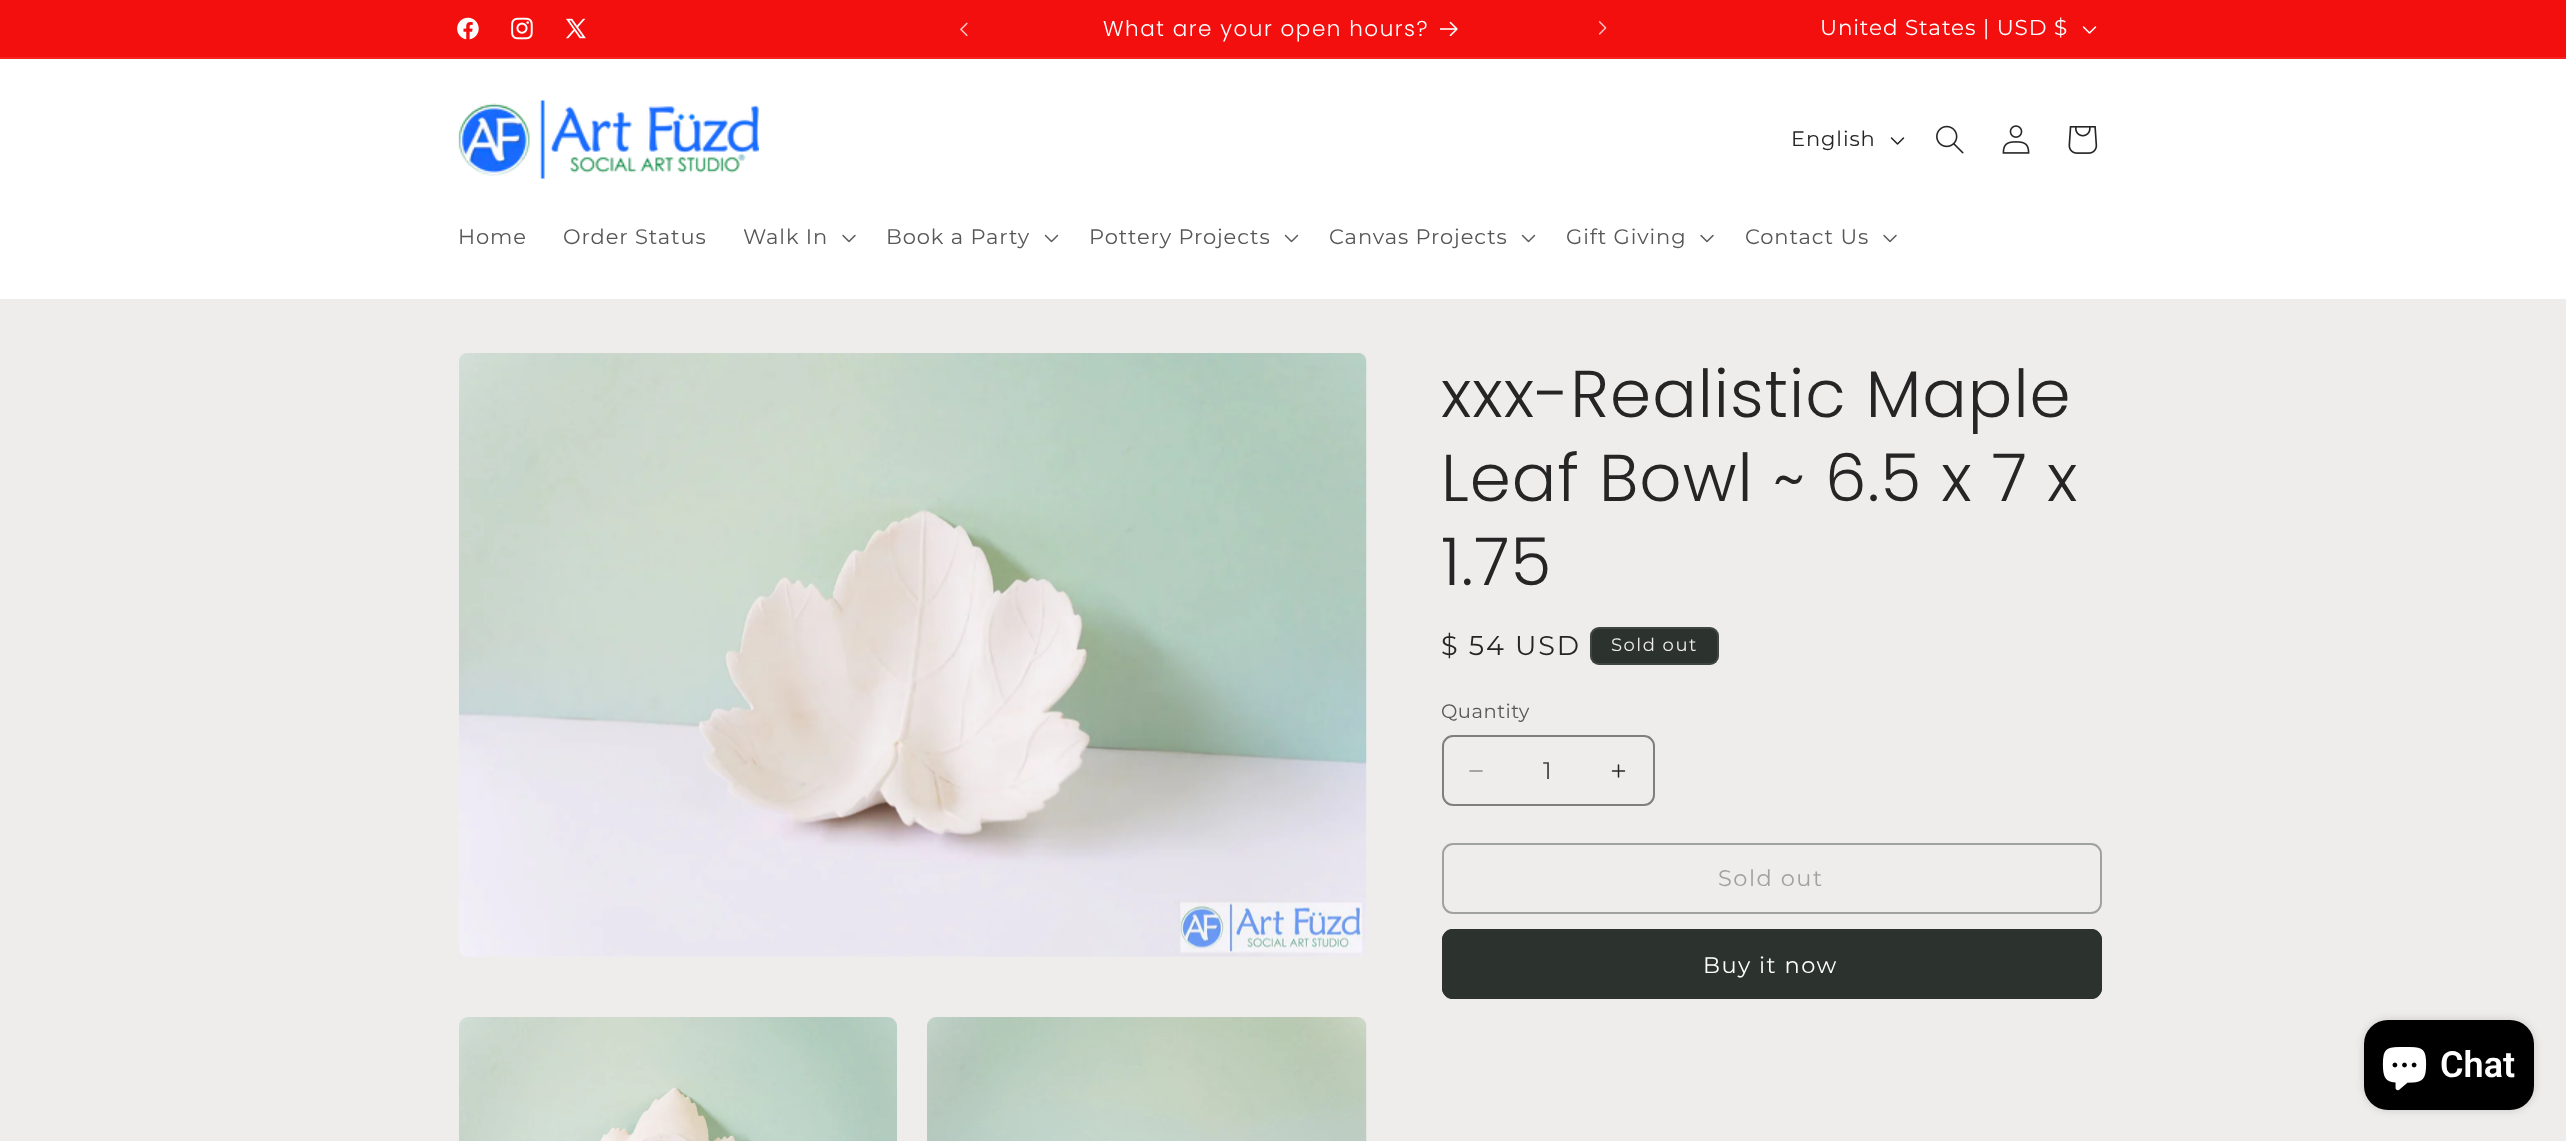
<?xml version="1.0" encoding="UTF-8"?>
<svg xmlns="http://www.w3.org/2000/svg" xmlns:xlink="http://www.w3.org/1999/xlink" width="2566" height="1141">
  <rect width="100%" height="100%" fill="#efecec" />
  <rect width="2566" height="57" fill="#f40f0f" />
  <rect y="57" width="2566" height="2" fill="#f52222" />
  <image x="457" y="17" width="22" height="23" xlink:href="image1.png" />
  <image x="511" y="17" width="22" height="23" xlink:href="image2.png" />
  <image x="566" y="18" width="20" height="21" xlink:href="image3.png" />
  <image x="960" y="22" width="8" height="15" xlink:href="image4.png" />
  <image x="1440" y="21" width="18" height="15" xlink:href="image5.png" />
  <image x="1598" y="21" width="9" height="14" xlink:href="image6.png" />
  <image x="2082" y="26" width="15" height="8" xlink:href="image7.png" />
  <rect y="59" width="2566" height="240" fill="#ffffff" />
  <image x="458" y="100" width="301" height="79" xlink:href="image8.png" />
  <image x="1890" y="137" width="15" height="8" xlink:href="image9.png" />
  <image x="1936" y="125" width="28" height="29" xlink:href="image10.png" />
  <image x="2002" y="125" width="28" height="29" xlink:href="image11.png" />
  <image x="2068" y="126" width="30" height="28" xlink:href="image12.png" />
  <image x="842" y="234" width="14" height="9" xlink:href="image13.png" />
  <image x="1044" y="234" width="15" height="9" xlink:href="image14.png" />
  <image x="1284" y="234" width="15" height="9" xlink:href="image14.png" />
  <image x="1521" y="234" width="15" height="9" xlink:href="image14.png" />
  <image x="1700" y="234" width="14" height="9" xlink:href="image13.png" />
  <image x="1883" y="234" width="14" height="9" xlink:href="image13.png" />
  <image x="459" y="353" width="908" height="604" xlink:href="image15.png" />
  <image x="459" y="1017" width="438" height="124" xlink:href="image16.png" />
  <image x="927" y="1017" width="440" height="124" xlink:href="image17.png" />
  <rect x="1590" y="627" width="129" height="38" rx="9" fill="#2c332f" />
  <rect x="1591" y="628" width="127" height="36" rx="8" fill="none" stroke="#efecec" stroke-opacity="0.1" stroke-width="2" />
  <image x="1469" y="770" width="14" height="2" xlink:href="image18.png" />
  <image x="1611" y="764" width="15" height="14" xlink:href="image19.png" />
  <rect x="1443" y="736" width="211" height="69" rx="10" fill="none" stroke="#807f7f" stroke-width="2" />
  <rect x="1443" y="844" width="658" height="69" rx="10" fill="none" stroke="#a0a1a1" stroke-width="2" />
  <rect x="1442" y="929" width="660" height="70" rx="11" fill="#2c332f" />
  <rect x="1443" y="930" width="658" height="68" rx="10" fill="none" stroke="#2c332f" stroke-width="2" />
  <rect x="2364" y="1020" width="170" height="90" rx="24" fill="#000000" fill-opacity="0.15" filter="blur(4px)" />
  <rect x="2364" y="1020" width="170" height="90" rx="24" fill="#000000" />
  <image x="2382" y="1047" width="45" height="44" xlink:href="image20.png" />
  <text x="1103" y="36" style="font-family: Poppins; font-size: 21.5px; font-weight: 300; letter-spacing: 1.5px; fill: #ffffff">What are your open hours?</text>
  <text x="1820" y="35" style="font-family: Montserrat; font-size: 21.5px; letter-spacing: 0.9px; fill: #ffffff">United States | USD $</text>
  <text x="1791" y="146" style="font-family: Montserrat; font-size: 21px; letter-spacing: 0.9px; fill: #252525">English</text>
  <text x="458" y="244" style="font-family: Montserrat; font-size: 21px; letter-spacing: 0.9px; fill: #585757">Home</text>
  <text x="563" y="244" style="font-family: Montserrat; font-size: 21px; letter-spacing: 0.9px; fill: #585757">Order Status</text>
  <text x="743" y="244" style="font-family: Montserrat; font-size: 21px; letter-spacing: 0.9px; fill: #585757">Walk In</text>
  <text x="886" y="244" style="font-family: Montserrat; font-size: 21px; letter-spacing: 0.9px; fill: #585757">Book a Party</text>
  <text x="1089" y="244" style="font-family: Montserrat; font-size: 21px; letter-spacing: 0.9px; fill: #585757">Pottery Projects</text>
  <text x="1329" y="244" style="font-family: Montserrat; font-size: 21px; letter-spacing: 0.9px; fill: #585757">Canvas Projects</text>
  <text x="1566" y="244" style="font-family: Montserrat; font-size: 21px; letter-spacing: 0.9px; fill: #585757">Gift Giving</text>
  <text x="1745" y="244" style="font-family: Montserrat; font-size: 21px; letter-spacing: 0.9px; fill: #585757">Contact Us</text>
  <text x="1441" y="417" style="font-family: Poppins; font-size: 66px; font-weight: 300; letter-spacing: 1px; fill: #252525">xxx-Realistic Maple</text>
  <text x="1441" y="501" style="font-family: Poppins; font-size: 66px; font-weight: 300; letter-spacing: 1px; fill: #252525">Leaf Bowl ~ 6.5 x 7 x</text>
  <text x="1441" y="585" style="font-family: Poppins; font-size: 66px; font-weight: 300; letter-spacing: 1px; fill: #252525">1.75</text>
  <text x="1441" y="655" style="font-family: Montserrat; font-size: 27px; letter-spacing: 2px; fill: #252525">$ 54 USD</text>
  <text x="1611" y="651" style="font-family: Montserrat; font-size: 18px; letter-spacing: 1.5px; fill: #efecec">Sold out</text>
  <text x="1441" y="718" style="font-family: Montserrat; font-size: 19.5px; letter-spacing: 0.5px; fill: #585757">Quantity</text>
  <text x="1543" y="779" style="font-family: Montserrat; font-size: 24px; fill: #434343">1</text>
  <text x="1718" y="886" style="font-family: Montserrat; font-size: 22.5px; letter-spacing: 1.5px; fill: #a0a1a1">Sold out</text>
  <text x="1703" y="973" style="font-family: Montserrat; font-size: 22.5px; letter-spacing: 1.5px; fill: #ffffff">Buy it now</text>
  <text x="2440" y="1077" style="font-family: Roboto; font-size: 36px; font-weight: 600; fill: #ffffff">Chat</text>
</svg>
